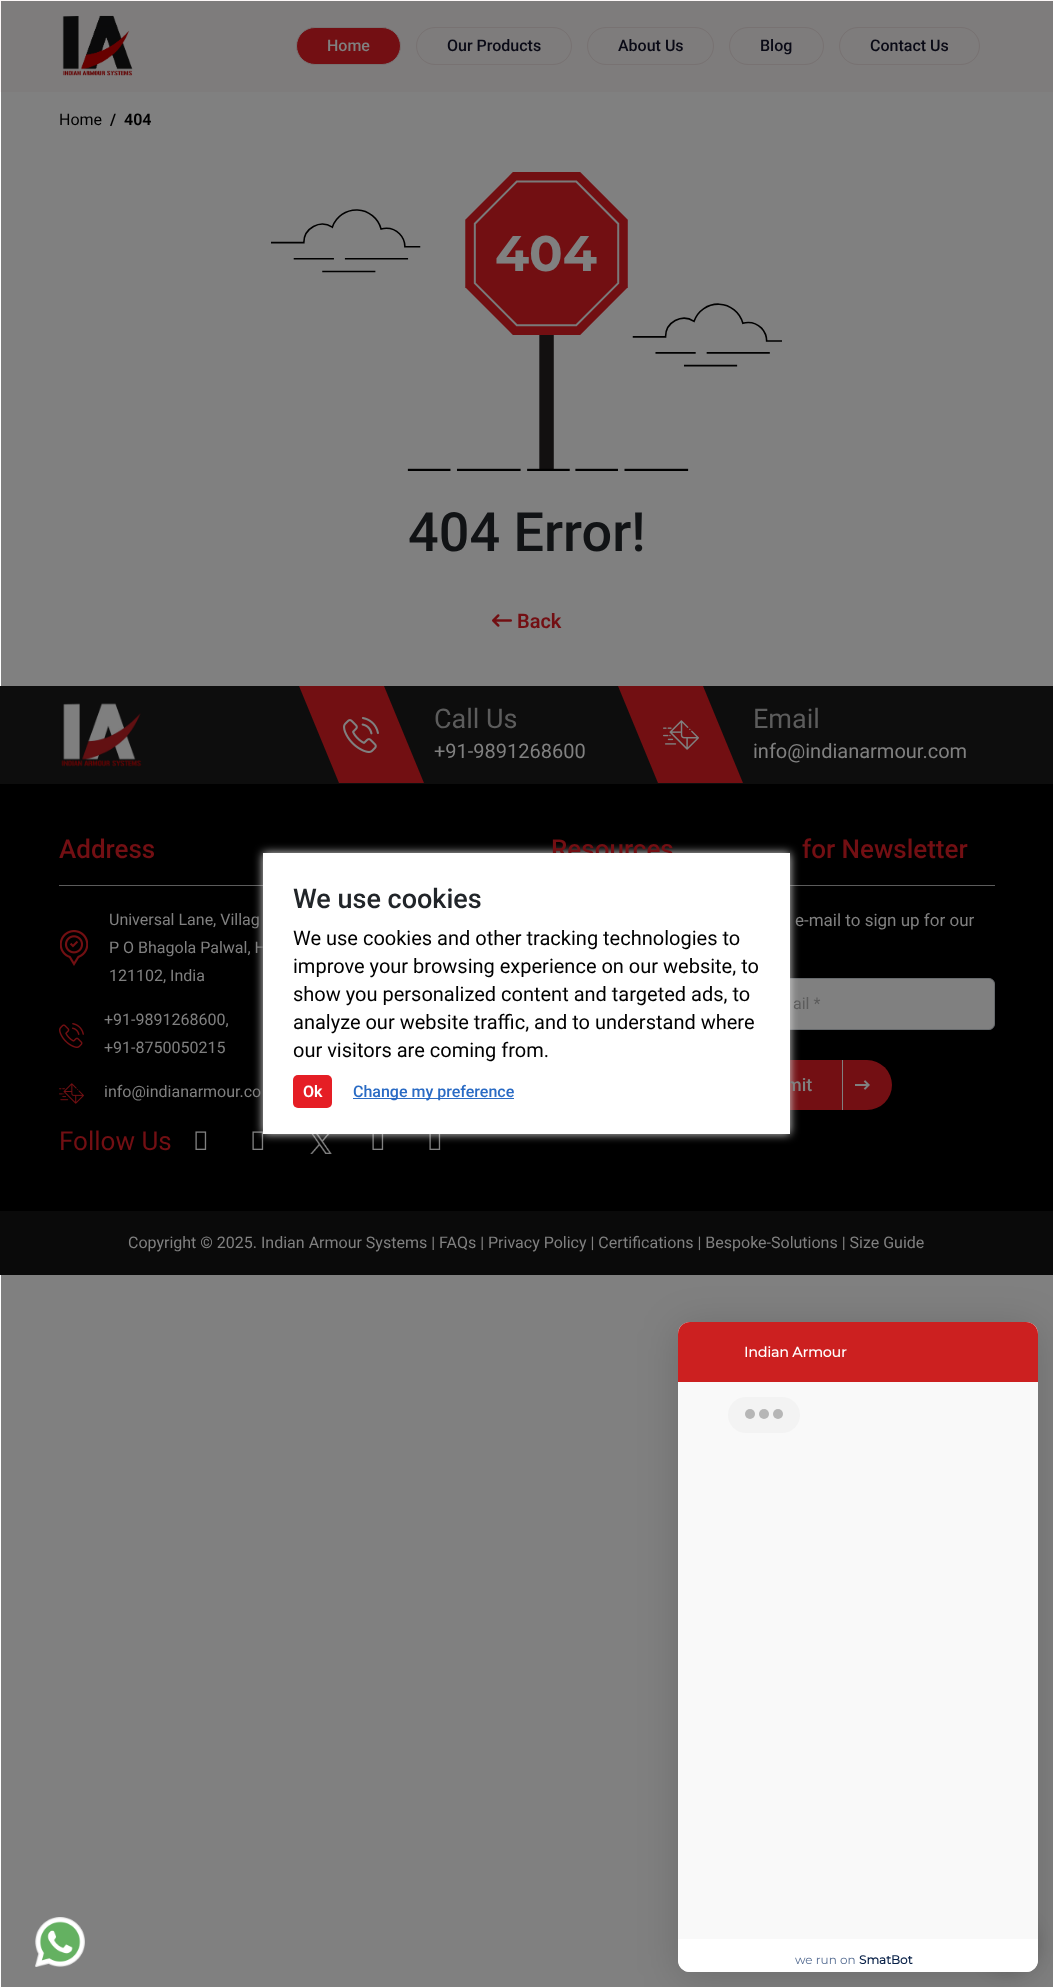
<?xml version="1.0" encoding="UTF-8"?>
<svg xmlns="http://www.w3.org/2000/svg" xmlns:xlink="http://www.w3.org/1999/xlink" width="1053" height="1987">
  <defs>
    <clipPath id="clip1"><rect x="678" y="1322" width="360" height="650" rx="12" /></clipPath>
  </defs>
  <rect width="100%" height="100%" fill="#ffffff" />
  <rect x="1" y="92" width="1052" height="1895" fill="#808080" />
  <rect width="1053" height="92" fill="#fcf7f7" />
  <rect x="1" y="1" width="1052" height="91" fill="#7e7c7c" />
  <image x="62" y="15" width="71" height="61" xlink:href="image1.png" />
  <rect x="296.5" y="27.5" width="104" height="37" rx="18.5" fill="#730f13" stroke="#787272" />
  <rect x="416.5" y="27.5" width="155" height="37" rx="18.5" fill="none" stroke="#787272" />
  <rect x="587.5" y="27.5" width="126" height="37" rx="18.5" fill="none" stroke="#787272" />
  <rect x="729.5" y="27.5" width="94" height="37" rx="18.5" fill="none" stroke="#787272" />
  <rect x="839.5" y="27.5" width="140" height="37" rx="18.5" fill="none" stroke="#787272" />
  <image x="271" y="172" width="511" height="299" xlink:href="image2.png" />
  <image x="492" y="614" width="20" height="13" xlink:href="image3.png" />
  <rect y="686" width="1053" height="98" fill="#0d0d0d" />
  <image x="61" y="703" width="81" height="64" xlink:href="image4.png" />
  <image x="299" y="686" width="125" height="97" xlink:href="image5.png" />
  <image x="343" y="717" width="36" height="36" xlink:href="image6.png" />
  <image x="618" y="686" width="125" height="97" xlink:href="image5.png" />
  <image x="663" y="720" width="36" height="30" xlink:href="image7.png" />
  <rect y="784" width="1053" height="427" fill="#000000" />
  <rect x="59" y="885" width="204" height="1" fill="#5c5c5c" />
  <image x="60" y="930" width="28" height="36" xlink:href="image8.png" />
  <image x="59" y="1023" width="25" height="25" xlink:href="image9.png" />
  <image x="59" y="1083" width="25" height="21" xlink:href="image10.png" />
  <rect x="790" y="885" width="205" height="1" fill="#5c5c5c" />
  <rect x="715.5" y="978.5" width="279" height="51" rx="5.5" fill="#808080" stroke="#676a6d" />
  <rect x="715" y="1060" width="177" height="50" rx="25" fill="#730f13" />
  <rect x="842" y="1060" width="1" height="50" fill="#808080" />
  <image x="855" y="1080" width="15" height="10" xlink:href="image11.png" />
  <image x="195" y="1131" width="12" height="19" xlink:href="image12.png" />
  <image x="252" y="1131" width="12" height="19" xlink:href="image12.png" />
  <image x="310" y="1134" width="22" height="20" xlink:href="image13.png" />
  <image x="372" y="1134" width="12" height="16" xlink:href="image14.png" />
  <image x="429" y="1134" width="12" height="16" xlink:href="image14.png" />
  <image x="35" y="1917" width="50" height="50" xlink:href="image15.png" />
  <rect x="263" y="853" width="527" height="281" fill="#dddddd" filter="blur(5px)" />
  <rect y="1211" width="1053" height="64" fill="#0a0a0a" />
  <rect x="678" y="1327" width="360" height="650" rx="12" fill="#000000" fill-opacity="0.16" filter="blur(20px)" />
  <rect x="981" y="1916" width="57" height="57" rx="28.5" fill="#000000" fill-opacity="0.15" filter="blur(8px)" />
  <rect x="678" y="1322" width="360" height="650" rx="12" fill="#ffffff" />
  <path d="M 690 1322 h 336 c 6.5 0 12 5.5 12 12 v 48 h -360 v -48 c 0 -6.5 5.5 -12 12 -12 z" fill="#cc2020" />
  <rect x="678" y="1382" width="360" height="557" fill="#f9f9f9" />
  <rect x="728" y="1397" width="72" height="36" rx="18" fill="#f3f3f3" />
  <circle cx="750" cy="1414" r="5" fill="#b6b6b6" />
  <circle cx="764" cy="1414" r="5" fill="#b6b6b6" />
  <circle cx="778" cy="1414" r="5" fill="#b6b6b6" />
  <g clip-path="url(#clip1)">
    <path d="M 678 1943 h 360 v 24 c 0 6.5 -5.5 12 -12 12 h -336 c -6.5 0 -12 -5.5 -12 -12 z" fill="#ffffff" />
  </g>
  <text x="327" y="51" style="font-family: Roboto; font-size: 16px; font-weight: 500; fill: #808080">Home</text>
  <text x="447" y="51" style="font-family: Roboto; font-size: 16px; font-weight: 500; fill: #0a0a16">Our Products</text>
  <text x="618" y="51" style="font-family: Roboto; font-size: 16px; font-weight: 500; fill: #0a0a16">About Us</text>
  <text x="760" y="51" style="font-family: Roboto; font-size: 16px; font-weight: 500; fill: #0a0a16">Blog</text>
  <text x="870" y="51" style="font-family: Roboto; font-size: 16px; font-weight: 500; fill: #0a0a16">Contact Us</text>
  <text x="59" y="125" style="font-family: Roboto; font-size: 16px; fill: #000000">Home</text>
  <text x="110" y="125" style="font-family: Roboto; font-size: 16px; font-weight: 600; fill: #000000">/</text>
  <text x="124" y="125" style="font-family: Roboto; font-size: 16px; font-weight: 600; fill: #000000">404</text>
  <text x="408" y="551" style="font-family: Roboto; font-size: 54px; font-weight: 500; fill: #111315">404 Error!</text>
  <text x="517" y="628" style="font-family: Roboto; font-size: 20px; font-weight: 600; fill: #730f13">Back</text>
  <text x="434" y="728" style="font-family: Roboto; font-size: 27px; fill: #5c5c5c">Call Us</text>
  <text x="434" y="758" style="font-family: Roboto; font-size: 20px; fill: #808080">+91-9891268600</text>
  <text x="753" y="728" style="font-family: Roboto; font-size: 27px; fill: #5c5c5c">Email</text>
  <text x="753" y="758" style="font-family: Roboto; font-size: 20px; fill: #808080">info@indianarmour.com</text>
  <text x="59" y="858" style="font-family: Roboto; font-size: 26px; font-weight: 500; fill: #730f13">Address</text>
  <text x="109" y="925" style="font-family: Roboto; font-size: 16px; fill: #808080">Universal Lane, Villag</text>
  <text x="109" y="953" style="font-family: Roboto; font-size: 16px; fill: #808080">P O Bhagola Palwal, H</text>
  <text x="109" y="981" style="font-family: Roboto; font-size: 16px; fill: #808080">121102, India</text>
  <text x="104" y="1025" style="font-family: Roboto; font-size: 16px; fill: #808080">+91-9891268600,</text>
  <text x="104" y="1053" style="font-family: Roboto; font-size: 16px; fill: #808080">+91-8750050215</text>
  <text x="104" y="1097" style="font-family: Roboto; font-size: 16px; fill: #808080">info@indianarmour.co</text>
  <text x="551" y="858" style="font-family: Roboto; font-size: 26px; font-weight: 500; fill: #730f13">Resources</text>
  <text x="802" y="858" style="font-family: Roboto; font-size: 26px; font-weight: 500; fill: #730f13">for Newsletter</text>
  <text x="795" y="926" style="font-family: Roboto; font-size: 17px; fill: #808080">e-mail to sign up for our</text>
  <text x="793" y="1009" style="font-family: Roboto; font-size: 16px; fill: #5c5c5c">ail *</text>
  <text x="786" y="1091" style="font-family: Roboto; font-size: 18px; font-weight: 500; fill: #808080">mit</text>
  <text x="59" y="1150" style="font-family: Roboto; font-size: 26px; fill: #730f13">Follow Us</text>
  <rect x="263" y="853" width="527" height="281" fill="#ffffff" />
  <text x="293" y="908" style="font-family: Roboto; font-size: 27px; font-weight: 500; fill: #212529">We use cookies</text>
  <text x="293" y="945" style="font-family: Roboto; font-size: 20px; fill: #000000">We use cookies and other tracking technologies to</text>
  <text x="293" y="973" style="font-family: Roboto; font-size: 20px; fill: #000000">improve your browsing experience on our website, to</text>
  <text x="293" y="1001" style="font-family: Roboto; font-size: 20px; fill: #000000">show you personalized content and targeted ads, to</text>
  <text x="293" y="1029" style="font-family: Roboto; font-size: 20px; fill: #000000">analyze our website traffic, and to understand where</text>
  <text x="293" y="1057" style="font-family: Roboto; font-size: 20px; fill: #000000">our visitors are coming from.</text>
  <rect x="293" y="1075" width="39" height="33" rx="5" fill="#e51e25" />
  <text x="303" y="1097" style="font-family: Roboto; font-size: 16px; font-weight: 600; fill: #ffffff">Ok</text>
  <rect x="353" y="1098" width="161" height="1" fill="#2a6bc4" />
  <text x="353" y="1097" style="font-family: Roboto; font-size: 16px; font-weight: 500; fill: #2a6bc4">Change my preference</text>
  <text x="128" y="1248" style="font-family: Roboto; font-size: 16px; fill: #808080">Copyright © 2025. Indian Armour Systems | FAQs | Privacy Policy | Certifications | Bespoke-Solutions | Size Guide</text>
  <text x="744" y="1357" style="font-family: Montserrat; font-size: 14px; font-weight: bold; fill: #ffffff">Indian Armour</text>
  <text x="795" y="1964" style="font-family: Montserrat; font-size: 12px; font-weight: 100; fill: #576e93">we run on</text>
  <text x="859" y="1964" style="font-family: Montserrat; font-size: 12px; font-weight: bold; fill: #092148">SmatBot</text>
</svg>
